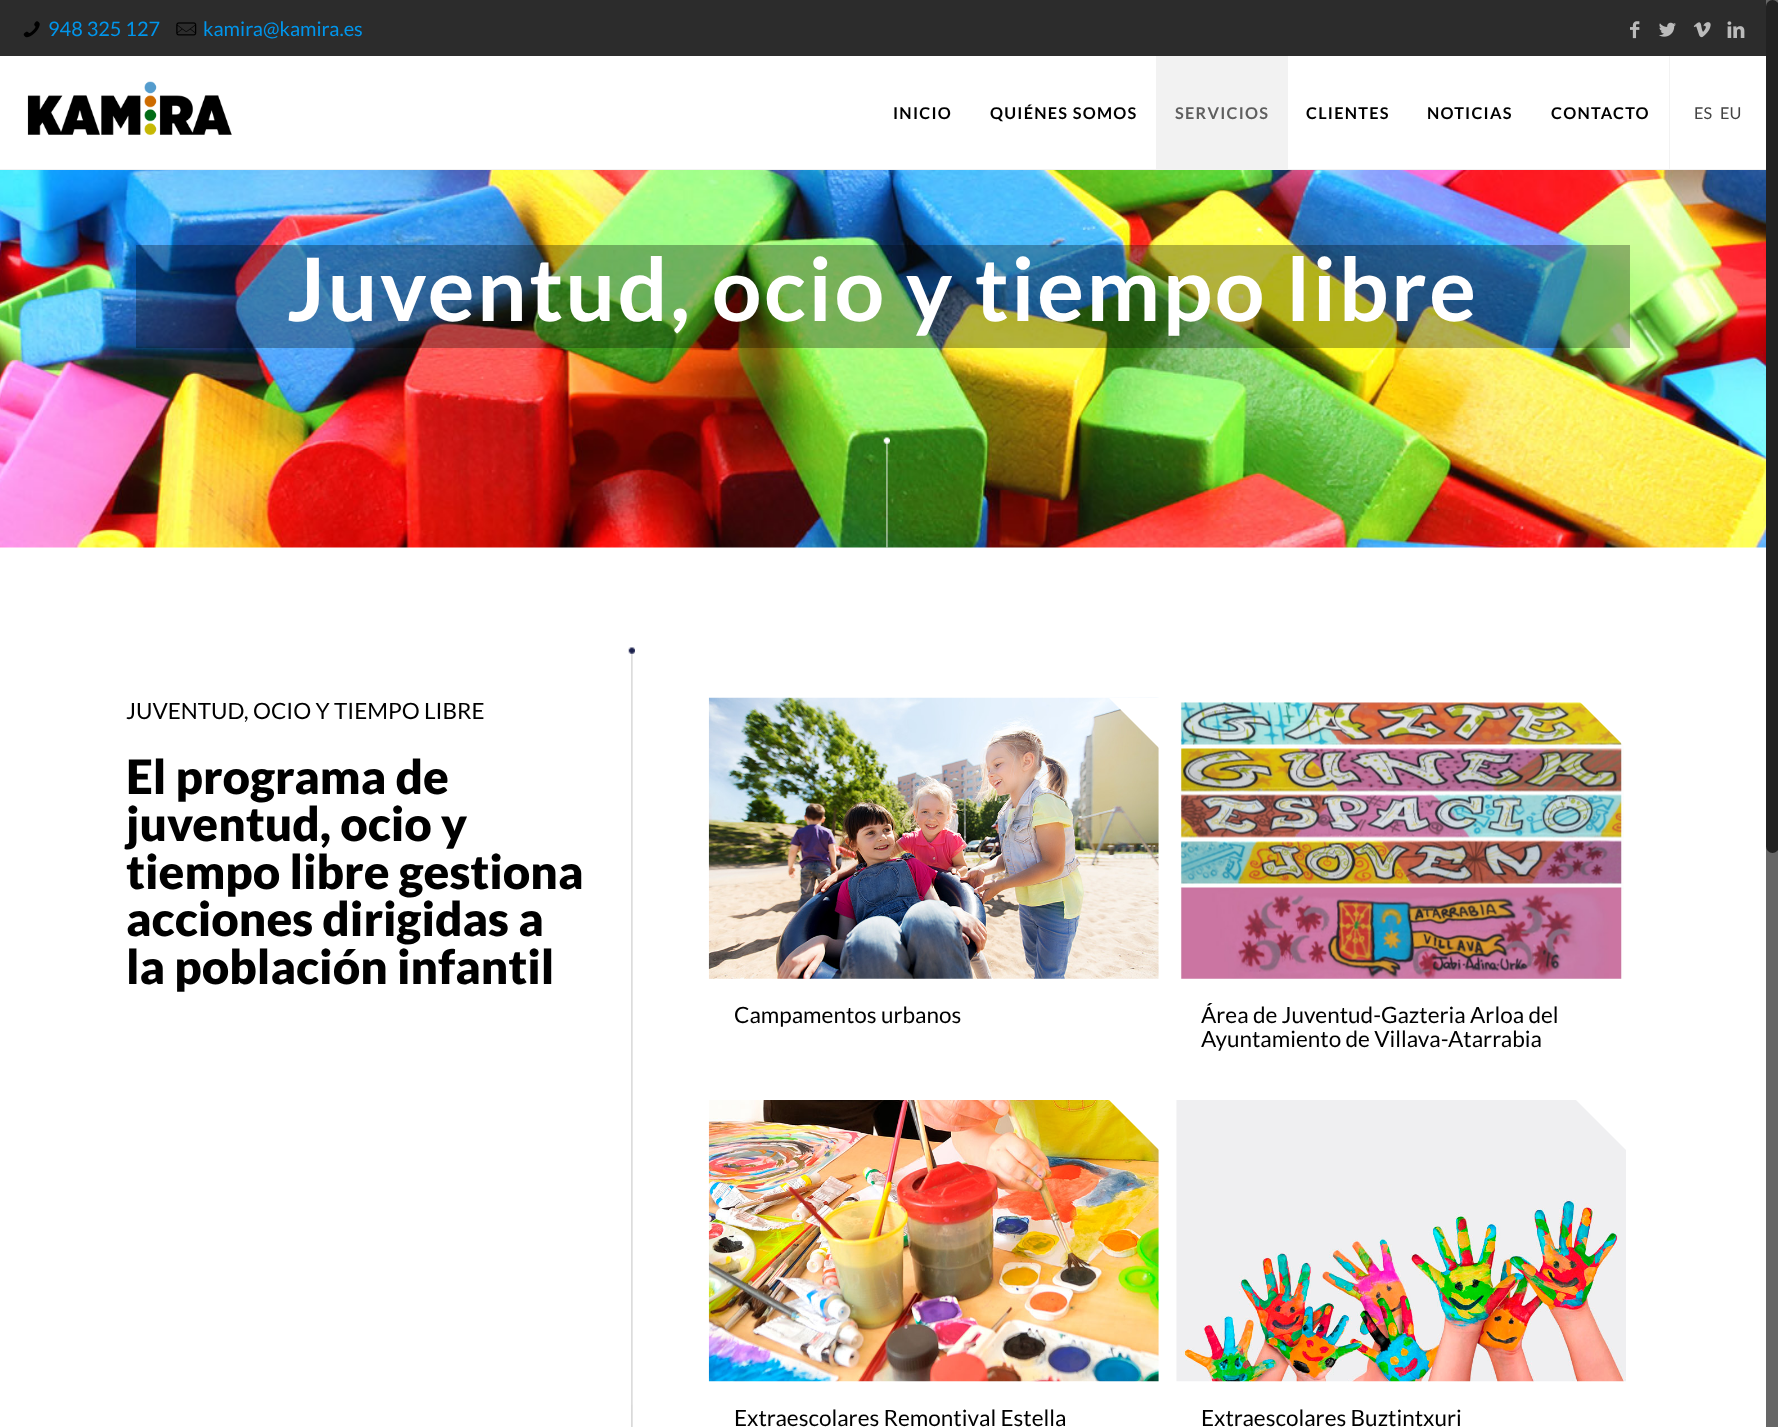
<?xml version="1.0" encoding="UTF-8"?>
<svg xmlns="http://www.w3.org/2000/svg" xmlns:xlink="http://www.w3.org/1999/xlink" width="1778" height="1427">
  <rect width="100%" height="100%" fill="#ffffff" />
  <image x="0" y="170" width="1766" height="378" xlink:href="image1.png" />
  <rect width="1766" height="56" fill="#2c2c2c" />
  <image x="23" y="21" width="17" height="17" xlink:href="image2.png" />
  <image x="176" y="22" width="21" height="14" xlink:href="image3.png" />
  <image x="1630" y="21" width="10" height="18" xlink:href="image4.png" />
  <image x="1659" y="22" width="17" height="15" xlink:href="image5.png" />
  <image x="1693" y="22" width="18" height="16" xlink:href="image6.png" />
  <image x="1727" y="21" width="18" height="17" xlink:href="image7.png" />
  <rect y="169" width="1766" height="1" fill="#f2f2f2" />
  <image x="27" y="81" width="205" height="54" xlink:href="image8.png" />
  <rect x="1156" y="56" width="132" height="113" fill="#f2f2f2" />
  <rect x="1669" y="56" width="1" height="113" fill="#f2f2f2" />
  <rect x="136" y="245" width="1494" height="103" fill="#000000" fill-opacity="0.3" />
  <image x="883" y="437" width="7" height="111" xlink:href="image9.png" />
  <image x="628" y="647" width="7" height="780" xlink:href="image10.png" />
  <image x="708" y="697" width="451" height="282" xlink:href="image11.png" />
  <path d="M 1159 698 v 50 l -50 -50 z" fill="#ffffff" />
  <image x="1180" y="702" width="444" height="277" xlink:href="image12.png" />
  <path d="M 1626 698 v 50 l -50 -50 z" fill="#ffffff" />
  <image x="708" y="1100" width="451" height="282" xlink:href="image13.png" />
  <path d="M 1159 1100 v 50 l -50 -50 z" fill="#ffffff" />
  <image x="1176" y="1100" width="450" height="282" xlink:href="image14.png" />
  <path d="M 1626 1100 v 50 l -50 -50 z" fill="#ffffff" />
  <rect x="1766" width="12" height="1427" fill="#666666" />
  <rect x="1766" width="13" height="853" rx="6.5" fill="#222222" />
  <text x="48" y="36" style="font-family: Lato; font-size: 20px; fill: #0095eb">948 325 127</text>
  <text x="203" y="36" style="font-family: Lato; font-size: 20px; fill: #0095eb">kamira@kamira.es</text>
  <text x="893" y="119" style="font-family: Lato; font-size: 16.25px; font-weight: bold; letter-spacing: 1.25px; fill: #000000">INICIO</text>
  <text x="990" y="119" style="font-family: Lato; font-size: 16.25px; font-weight: bold; letter-spacing: 1.25px; fill: #000000">QUIÉNES SOMOS</text>
  <text x="1175" y="119" style="font-family: Lato; font-size: 16.25px; font-weight: bold; letter-spacing: 1.25px; fill: #5f5f5f">SERVICIOS</text>
  <text x="1306" y="119" style="font-family: Lato; font-size: 16.25px; font-weight: bold; letter-spacing: 1.25px; fill: #000000">CLIENTES</text>
  <text x="1427" y="119" style="font-family: Lato; font-size: 16.25px; font-weight: bold; letter-spacing: 1.25px; fill: #000000">NOTICIAS</text>
  <text x="1551" y="119" style="font-family: Lato; font-size: 16.25px; font-weight: bold; letter-spacing: 1.25px; fill: #000000">CONTACTO</text>
  <text x="1694" y="119" style="font-family: Lato; font-size: 16.25px; fill: #444444">ES</text>
  <text x="1720" y="119" style="font-family: Lato; font-size: 16.25px; fill: #444444">EU</text>
  <text x="287" y="321" style="font-family: Lato; font-size: 87.5px; font-weight: bold; letter-spacing: 2.5px; fill: #ffffff">Juventud, ocio y tiempo libre</text>
  <text x="126" y="719" style="font-family: Lato; font-size: 22.5px; fill: #000000">JUVENTUD, OCIO Y TIEMPO LIBRE</text>
  <text x="126" y="794" style="font-family: Lato; font-size: 47.5px; font-weight: 900; fill: #000000">El programa de</text>
  <text x="126" y="841" style="font-family: Lato; font-size: 47.5px; font-weight: 900; fill: #000000">juventud, ocio y</text>
  <text x="126" y="889" style="font-family: Lato; font-size: 47.5px; font-weight: 900; fill: #000000">tiempo libre gestiona</text>
  <text x="126" y="936" style="font-family: Lato; font-size: 47.5px; font-weight: 900; fill: #000000">acciones dirigidas a</text>
  <text x="126" y="984" style="font-family: Lato; font-size: 47.5px; font-weight: 900; fill: #000000">la población infantil</text>
  <text x="734" y="1023" style="font-family: Lato; font-size: 22.5px; fill: #000000">Campamentos urbanos</text>
  <text x="1201" y="1023" style="font-family: Lato; font-size: 22.5px; fill: #000000">Área de Juventud-Gazteria Arloa del</text>
  <text x="1201" y="1047" style="font-family: Lato; font-size: 22.5px; fill: #000000">Ayuntamiento de Villava-Atarrabia</text>
  <text x="734" y="1426" style="font-family: Lato; font-size: 22.5px; fill: #000000">Extraescolares Remontival Estella</text>
  <text x="1201" y="1426" style="font-family: Lato; font-size: 22.5px; fill: #000000">Extraescolares Buztintxuri</text>
</svg>
